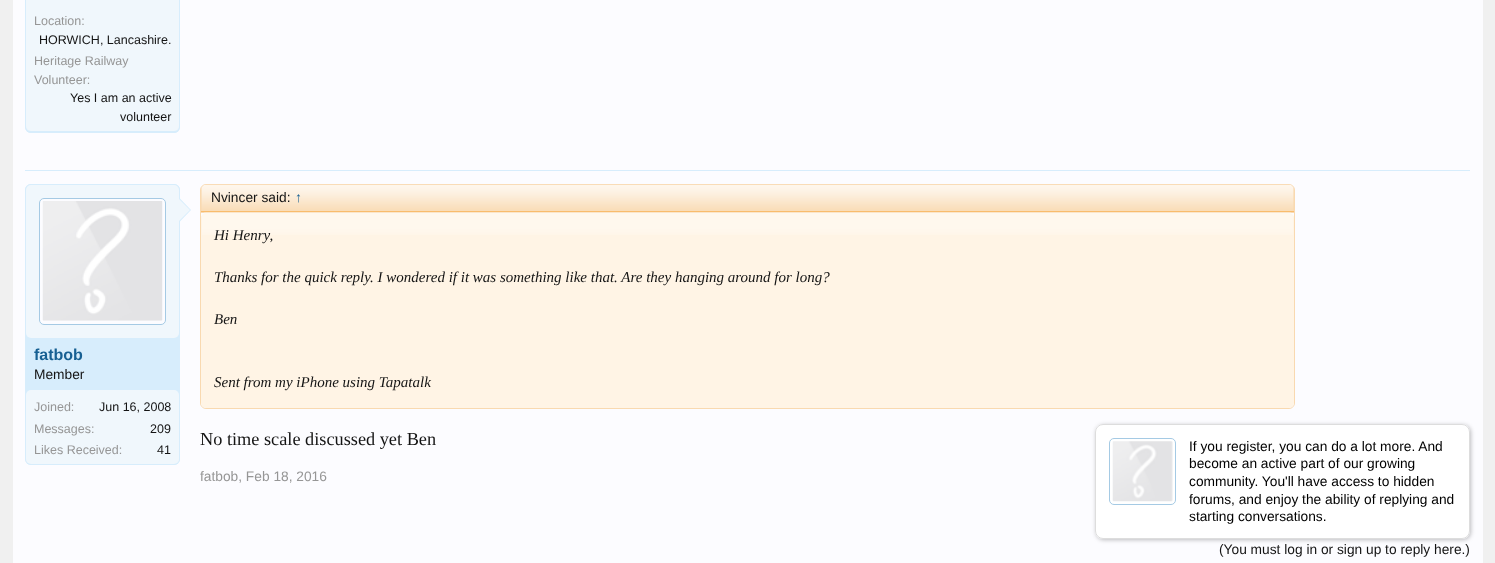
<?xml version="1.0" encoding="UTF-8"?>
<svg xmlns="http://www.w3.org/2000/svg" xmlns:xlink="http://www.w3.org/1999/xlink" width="1495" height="563">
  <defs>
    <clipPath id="clip1"><path d="M 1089 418 h 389 v 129 h -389 z m 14 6 h 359 c 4.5 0 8 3.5 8 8 v 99 c 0 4.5 -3.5 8 -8 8 h -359 c -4.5 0 -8 -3.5 -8 -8 v -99 c 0 -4.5 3.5 -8 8 -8 z" clip-rule="evenodd" /></clipPath>
  </defs>
  <rect width="100%" height="100%" fill="#f0f0f0" />
  <rect x="13" width="1470" height="563" fill="#fcfcff" />
  <rect x="25" y="-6" width="155" height="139" rx="6" fill="#d7edfc" />
  <image x="25" y="126" width="155" height="5" xlink:href="image1.png" />
  <rect x="25.5" y="-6.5" width="154" height="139" rx="5.5" fill="none" stroke="#d7edfc" />
  <rect x="26" y="-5" width="153" height="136" rx="5" fill="#f0f7fc" />
  <rect x="25" y="170" width="1445" height="1" fill="#d7edfc" />
  <rect x="25" y="184" width="155" height="281" rx="6" fill="#d7edfc" />
  <image x="25" y="459" width="155" height="4" xlink:href="image2.png" />
  <rect x="25.5" y="184.5" width="154" height="280" rx="5.5" fill="none" stroke="#d7edfc" />
  <rect x="26" y="185" width="153" height="153" rx="5" fill="#f0f7fc" />
  <rect x="39.5" y="198.5" width="126" height="126" rx="4.5" fill="#fcfcff" stroke="#a5cae4" />
  <image x="42" y="201" width="121" height="120" xlink:href="image3.png" />
  <path d="M 179 222.5 v -25 l 12 12.5 z" fill="#d7edfc" />
  <path d="M 177.5 222.5 v -25 l 12.5 12.5 z" fill="#f0f7fc" />
  <rect x="26" y="390" width="153" height="74" rx="5" fill="#f0f7fc" />
  <rect x="200.5" y="184.5" width="1094" height="224" rx="5.5" fill="none" stroke="#f9d9b0" />
  <path d="M 206 185 h 1083 c 3 0 5 2 5 5 v 23 h -1093 v -23 c 0 -3 2 -5 5 -5 z" fill="#f9d9b0" />
  <image x="201" y="184" width="1093" height="27" xlink:href="image4.png" />
  <rect x="201" y="211" width="1093" height="1" fill="#f9bc6d" />
  <rect x="201" y="213" width="1093" height="195" rx="5" fill="#fff4e5" />
  <image x="202" y="212" width="1091" height="23" xlink:href="image5.png" />
  <g clip-path="url(#clip1)">
    <rect x="1096" y="425" width="375" height="115" rx="8" fill="#000000" fill-opacity="0.25" filter="blur(2px)" />
  </g>
  <rect x="1095.5" y="424.5" width="374" height="114" rx="7.5" fill="#ffffff" fill-opacity="0.8" stroke="#dddddd" />
  <rect x="1109.5" y="438.5" width="66" height="66" rx="4.5" fill="none" stroke="#a5cae4" />
  <image x="1112" y="441" width="61" height="61" xlink:href="image6.png" />
  <text x="34" y="25" style="font-family: Liberation Sans; font-size: 12.5px; fill: #969696">Location:</text>
  <text x="39" y="44" style="font-family: Liberation Sans; font-size: 12.5px; fill: #141414">HORWICH, Lancashire.</text>
  <text x="34" y="65" style="font-family: Liberation Sans; font-size: 12.5px; fill: #969696">Heritage Railway</text>
  <text x="34" y="84" style="font-family: Liberation Sans; font-size: 12.5px; fill: #969696">Volunteer:</text>
  <text x="70" y="102" style="font-family: Liberation Sans; font-size: 12.5px; fill: #141414">Yes I am an active</text>
  <text x="120" y="121" style="font-family: Liberation Sans; font-size: 12.5px; fill: #141414">volunteer</text>
  <text x="34" y="360" style="font-family: Liberation Sans; font-size: 16px; font-weight: bold; fill: #176093">fatbob</text>
  <text x="34" y="379" style="font-family: Liberation Sans; font-size: 13.75px; fill: #141414">Member</text>
  <text x="34" y="411" style="font-family: Liberation Sans; font-size: 12.5px; fill: #969696">Joined:</text>
  <text x="99" y="411" style="font-family: Liberation Sans; font-size: 12.5px; fill: #141414">Jun 16, 2008</text>
  <text x="34" y="433" style="font-family: Liberation Sans; font-size: 12.5px; fill: #969696">Messages:</text>
  <text x="150" y="433" style="font-family: Liberation Sans; font-size: 12.5px; fill: #141414">209</text>
  <text x="34" y="454" style="font-family: Liberation Sans; font-size: 12.5px; fill: #969696">Likes Received:</text>
  <text x="157" y="454" style="font-family: Liberation Sans; font-size: 12.5px; fill: #141414">41</text>
  <text x="211" y="202" style="font-family: Liberation Sans; font-size: 13.75px; fill: #141414">Nvincer said:</text>
  <text x="295" y="202" style="font-family: Liberation Sans; font-size: 13.75px; fill: #176093">↑</text>
  <text x="214" y="240" style="font-family: Liberation Serif; font-size: 15px; font-style: italic; fill: #141414">Hi Henry,</text>
  <text x="214" y="282" style="font-family: Liberation Serif; font-size: 15px; font-style: italic; fill: #141414">Thanks for the quick reply. I wondered if it was something like that. Are they hanging around for long?</text>
  <text x="214" y="324" style="font-family: Liberation Serif; font-size: 15px; font-style: italic; fill: #141414">Ben</text>
  <text x="214" y="387" style="font-family: Liberation Serif; font-size: 15px; font-style: italic; fill: #141414">Sent from my iPhone using Tapatalk</text>
  <text x="200" y="445" style="font-family: Liberation Serif; font-size: 18.3px; fill: #141414">No time scale discussed yet Ben</text>
  <text x="200" y="481" style="font-family: Liberation Sans; font-size: 13.75px; fill: #969696">fatbob, Feb 18, 2016</text>
  <text x="1189" y="451" style="font-family: Liberation Sans; font-size: 13.75px; fill: #000000">If you register, you can do a lot more. And</text>
  <text x="1189" y="468" style="font-family: Liberation Sans; font-size: 13.75px; fill: #000000">become an active part of our growing</text>
  <text x="1189" y="486" style="font-family: Liberation Sans; font-size: 13.75px; fill: #000000">community. You'll have access to hidden</text>
  <text x="1189" y="504" style="font-family: Liberation Sans; font-size: 13.75px; fill: #000000">forums, and enjoy the ability of replying and</text>
  <text x="1189" y="521" style="font-family: Liberation Sans; font-size: 13.75px; fill: #000000">starting conversations.</text>
  <text x="1219" y="554" style="font-family: Liberation Sans; font-size: 13.75px; fill: #141414">(You must log in or sign up to reply here.)</text>
</svg>
